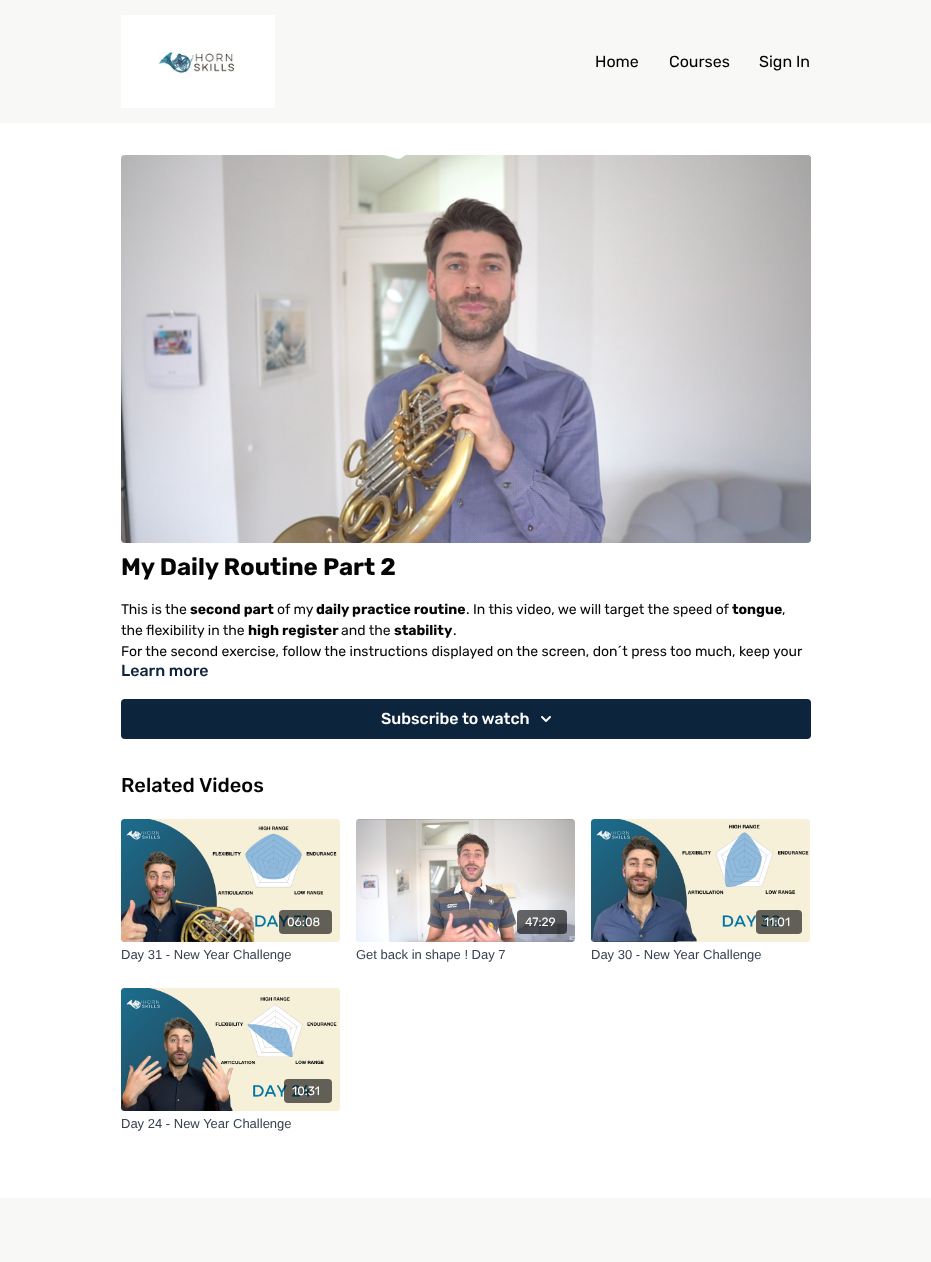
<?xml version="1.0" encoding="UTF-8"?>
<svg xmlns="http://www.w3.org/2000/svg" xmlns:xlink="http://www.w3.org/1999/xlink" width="931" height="1262">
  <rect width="100%" height="100%" fill="#f8f8f7" />
  <image x="121" y="15" width="154" height="93" xlink:href="image1.png" />
  <rect y="123" width="931" height="1075" fill="#ffffff" />
  <image x="121" y="155" width="690" height="388" xlink:href="image2.png" />
  <rect x="121" y="699" width="690" height="40" rx="4" fill="#0d243d" />
  <image x="541" y="716" width="10" height="6" xlink:href="image3.png" />
  <image x="121" y="819" width="219" height="123" xlink:href="image4.png" />
  <rect x="279" y="910" width="53" height="24" rx="4" fill="#000000" fill-opacity="0.6" />
  <image x="356" y="819" width="219" height="123" xlink:href="image5.png" />
  <rect x="517" y="910" width="50" height="24" rx="4" fill="#000000" fill-opacity="0.6" />
  <image x="591" y="819" width="219" height="123" xlink:href="image6.png" />
  <rect x="756" y="910" width="46" height="24" rx="4" fill="#000000" fill-opacity="0.6" />
  <image x="121" y="988" width="219" height="123" xlink:href="image7.png" />
  <rect x="284" y="1079" width="48" height="24" rx="4" fill="#000000" fill-opacity="0.6" />
  <text x="595" y="67" style="font-family: Rubik; font-size: 16px; fill: #000000">Home</text>
  <text x="669" y="67" style="font-family: Rubik; font-size: 16px; fill: #000000">Courses</text>
  <text x="759" y="67" style="font-family: Rubik; font-size: 16px; fill: #000000">Sign In</text>
  <text x="121" y="575" style="font-family: Rubik; font-size: 24px; font-weight: bold; fill: #060606">My Daily Routine Part 2</text>
  <text x="121" y="614" style="font-family: Rubik; font-size: 14px; fill: #060606">This is the</text>
  <text x="190" y="614" style="font-family: Rubik; font-size: 14px; font-weight: bold; fill: #060606">second part</text>
  <text x="277" y="614" style="font-family: Rubik; font-size: 14px; fill: #060606">of my</text>
  <text x="316" y="614" style="font-family: Rubik; font-size: 14px; font-weight: bold; fill: #060606">daily practice routine</text>
  <text x="466" y="614" style="font-family: Rubik; font-size: 14px; fill: #060606">. In this video, we will target the speed of</text>
  <text x="732" y="614" style="font-family: Rubik; font-size: 14px; font-weight: bold; fill: #060606">tongue</text>
  <text x="782" y="614" style="font-family: Rubik; font-size: 14px; fill: #060606">,</text>
  <text x="121" y="635" style="font-family: Rubik; font-size: 14px; fill: #060606">the flexibility in the</text>
  <text x="248" y="635" style="font-family: Rubik; font-size: 14px; font-weight: bold; fill: #060606">high register</text>
  <text x="341" y="635" style="font-family: Rubik; font-size: 14px; fill: #060606">and the</text>
  <text x="394" y="635" style="font-family: Rubik; font-size: 14px; font-weight: bold; fill: #060606">stability</text>
  <text x="453" y="635" style="font-family: Rubik; font-size: 14px; fill: #060606">.</text>
  <text x="121" y="656" style="font-family: Rubik; font-size: 14px; fill: #060606">For the second exercise, follow the instructions displayed on the screen, don´t press too much, keep your</text>
  <text x="121" y="676" style="font-family: Rubik; font-size: 16px; font-weight: 500; fill: #0d243d">Learn more</text>
  <text x="381" y="724" style="font-family: Rubik; font-size: 16px; font-weight: 500; fill: #ffffff">Subscribe to watch</text>
  <text x="121" y="792" style="font-family: Rubik; font-size: 20px; font-weight: 500; fill: #060606">Related Videos</text>
  <text x="287" y="926" style="font-family: Rubik; font-size: 12px; fill: #ffffff">06:08</text>
  <text x="121" y="959" style="font-family: Liberation Sans; font-size: 13px; fill: #374151">Day 31 - New Year Challenge</text>
  <text x="525" y="926" style="font-family: Rubik; font-size: 12px; fill: #ffffff">47:29</text>
  <text x="356" y="959" style="font-family: Liberation Sans; font-size: 13px; fill: #374151">Get back in shape ! Day 7</text>
  <text x="764" y="926" style="font-family: Rubik; font-size: 12px; fill: #ffffff">11:01</text>
  <text x="591" y="959" style="font-family: Liberation Sans; font-size: 13px; fill: #374151">Day 30 - New Year Challenge</text>
  <text x="292" y="1095" style="font-family: Rubik; font-size: 12px; fill: #ffffff">10:31</text>
  <text x="121" y="1128" style="font-family: Liberation Sans; font-size: 13px; fill: #374151">Day 24 - New Year Challenge</text>
</svg>
